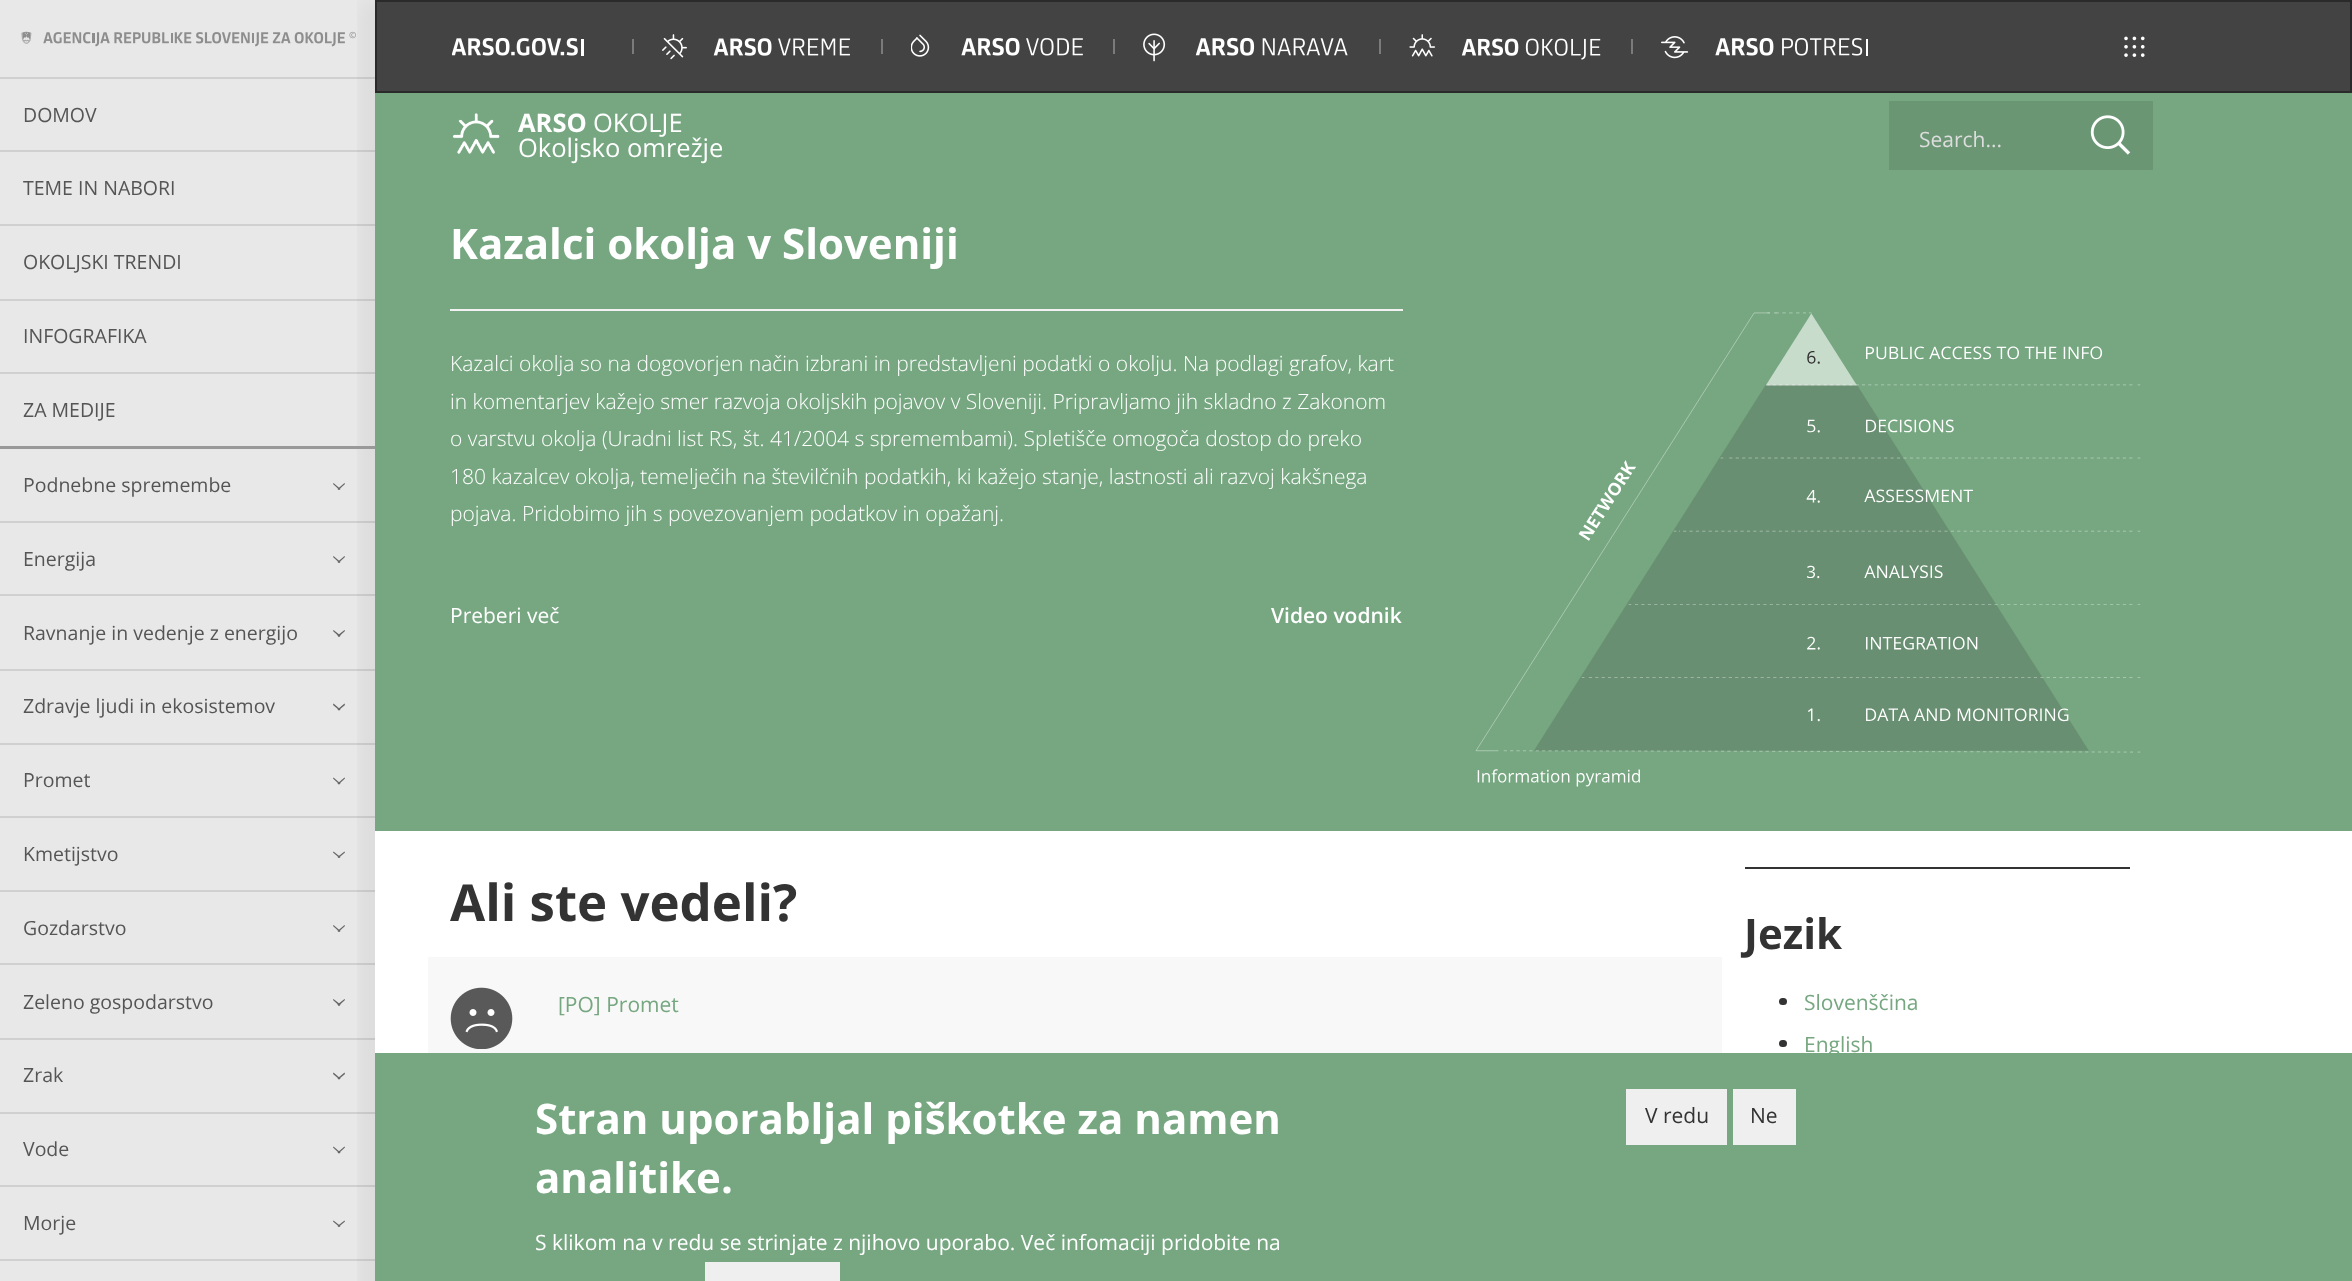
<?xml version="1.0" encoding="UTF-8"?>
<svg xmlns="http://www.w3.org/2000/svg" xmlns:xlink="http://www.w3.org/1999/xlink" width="2352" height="1281">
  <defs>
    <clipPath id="clip1"><rect x="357" y="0" width="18" height="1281" /></clipPath>
  </defs>
  <rect width="100%" height="100%" fill="#ffffff" />
  <rect width="375" height="1281" fill="#e8e8e8" />
  <image x="21" y="31" width="335" height="16" xlink:href="image1.png" />
  <g clip-path="url(#clip1)">
    <rect x="360" width="1977" height="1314" fill="#000000" fill-opacity="0.05" filter="blur(11px)" />
  </g>
  <rect y="77" width="375" height="2" fill="#000000" fill-opacity="0.1" />
  <rect y="150" width="375" height="2" fill="#000000" fill-opacity="0.1" />
  <rect y="224" width="375" height="2" fill="#000000" fill-opacity="0.1" />
  <rect y="299" width="375" height="2" fill="#000000" fill-opacity="0.1" />
  <rect y="372" width="375" height="2" fill="#000000" fill-opacity="0.1" />
  <rect y="446" width="375" height="3" fill="#999999" />
  <path d="M 345 484 l -6.5 6 l -1 -1 l 7 -6 z" fill="#666666" />
  <path d="M 333.5 483 l 7 6 l -1 1 l -6.5 -6 z" fill="#666666" />
  <rect y="521" width="375" height="2" fill="#000000" fill-opacity="0.1" />
  <path d="M 345 557 l -6.5 6 l -1 -1 l 7 -6 z" fill="#666666" />
  <path d="M 333.5 556 l 7 6 l -1 1 l -6.5 -6 z" fill="#666666" />
  <rect y="594" width="375" height="2" fill="#000000" fill-opacity="0.1" />
  <path d="M 345 631 l -6.5 6 l -1 -1.5 l 7 -5.5 z" fill="#666666" />
  <path d="M 333.5 630 l 7 5.5 l -1 1.5 l -6.5 -6 z" fill="#666666" />
  <rect y="669" width="375" height="2" fill="#000000" fill-opacity="0.1" />
  <path d="M 345 705 l -6.5 5.5 l -1 -1 l 7 -6 z" fill="#666666" />
  <path d="M 333.5 703.5 l 7 6 l -1 1 l -6.5 -5.5 z" fill="#666666" />
  <rect y="743" width="375" height="2" fill="#000000" fill-opacity="0.1" />
  <path d="M 345 778.5 l -6.5 6 l -1 -1 l 7 -6 z" fill="#666666" />
  <path d="M 333.5 777.5 l 7 6 l -1 1 l -6.5 -6 z" fill="#666666" />
  <rect y="816" width="375" height="2" fill="#000000" fill-opacity="0.1" />
  <path d="M 345 852.5 l -6.5 5.5 l -1 -1 l 7 -5.5 z" fill="#666666" />
  <path d="M 333.5 851.5 l 7 5.5 l -1 1 l -6.5 -5.5 z" fill="#666666" />
  <rect y="890" width="375" height="2" fill="#000000" fill-opacity="0.1" />
  <path d="M 345 926 l -6.5 6 l -1 -1 l 7 -6 z" fill="#666666" />
  <path d="M 333.5 925 l 7 6 l -1 1 l -6.5 -6 z" fill="#666666" />
  <rect y="963" width="375" height="2" fill="#000000" fill-opacity="0.1" />
  <path d="M 345 1000 l -6.5 6 l -1 -1.5 l 7 -5.5 z" fill="#666666" />
  <path d="M 333.5 999 l 7 5.5 l -1 1.5 l -6.5 -6 z" fill="#666666" />
  <rect y="1038" width="375" height="2" fill="#000000" fill-opacity="0.1" />
  <path d="M 345 1074 l -6.5 5.5 l -1 -1 l 7 -6 z" fill="#666666" />
  <path d="M 333.5 1072.5 l 7 6 l -1 1 l -6.5 -5.5 z" fill="#666666" />
  <rect y="1112" width="375" height="2" fill="#000000" fill-opacity="0.1" />
  <path d="M 345 1147.5 l -6.5 6 l -1 -1 l 7 -6 z" fill="#666666" />
  <path d="M 333.5 1146.5 l 7 6 l -1 1 l -6.5 -6 z" fill="#666666" />
  <rect y="1185" width="375" height="2" fill="#000000" fill-opacity="0.1" />
  <path d="M 345 1221.5 l -6.5 5.5 l -1 -1 l 7 -5.5 z" fill="#666666" />
  <path d="M 333.5 1220.5 l 7 5.5 l -1 1 l -6.5 -5.5 z" fill="#666666" />
  <rect y="1259" width="375" height="2" fill="#000000" fill-opacity="0.1" />
  <rect x="376" y="1" width="1975" height="91" fill="#434343" stroke="#2a2a2a" stroke-width="2" />
  <image x="452" y="37" width="132" height="19" xlink:href="image2.png" />
  <rect x="632" y="39" width="2" height="15" fill="#7b7b7b" />
  <image x="662" y="34" width="188" height="26" xlink:href="image3.png" />
  <rect x="881" y="39" width="2" height="15" fill="#7b7b7b" />
  <image x="911" y="34" width="172" height="23" xlink:href="image4.png" />
  <rect x="1113" y="39" width="2" height="15" fill="#7b7b7b" />
  <image x="1143" y="33" width="205" height="29" xlink:href="image5.png" />
  <rect x="1379" y="39" width="2" height="15" fill="#7b7b7b" />
  <image x="1409" y="34" width="192" height="26" xlink:href="image6.png" />
  <rect x="1631" y="39" width="2" height="15" fill="#7b7b7b" />
  <image x="1661" y="36" width="207" height="23" xlink:href="image7.png" />
  <image x="2124" y="36" width="21" height="21" xlink:href="image8.png" />
  <rect x="375" y="93" width="1977" height="738" fill="#76a781" />
  <image x="452" y="113" width="48" height="41" xlink:href="image9.png" />
  <rect x="1889" y="101" width="264" height="69" fill="#6a9674" />
  <image x="2090" y="115" width="41" height="40" xlink:href="image10.png" />
  <rect x="450" y="309" width="953" height="2" fill="#f2f2f2" />
  <image x="1475" y="312" width="666" height="475" xlink:href="image11.png" />
  <rect x="428" y="957" width="1294" height="96" fill="#f8f8f8" />
  <image x="450" y="987" width="63" height="62" xlink:href="image12.png" />
  <rect x="1745" y="867" width="385" height="2" fill="#333333" />
  <rect x="1779" y="998" width="8" height="7" rx="3.5" fill="#333333" />
  <rect x="1779" y="1040" width="8" height="7" rx="3.5" fill="#333333" />
  <rect x="375" y="1053" width="1977" height="228" fill="#76a781" />
  <rect x="705" y="1262" width="135" height="19" fill="#efefef" />
  <rect x="1626" y="1089" width="101" height="56" fill="#efefef" />
  <rect x="1733" y="1089" width="63" height="56" fill="#efefef" />
  <text x="23" y="122" style="font-family: Open Sans; font-size: 19.5px; fill: #555555">DOMOV</text>
  <text x="23" y="195" style="font-family: Open Sans; font-size: 19.5px; fill: #555555">TEME IN NABORI</text>
  <text x="23" y="269" style="font-family: Open Sans; font-size: 19.5px; fill: #555555">OKOLJSKI TRENDI</text>
  <text x="23" y="343" style="font-family: Open Sans; font-size: 19.5px; fill: #555555">INFOGRAFIKA</text>
  <text x="23" y="417" style="font-family: Open Sans; font-size: 19.5px; fill: #555555">ZA MEDIJE</text>
  <text x="23" y="492" style="font-family: Open Sans; font-size: 19.5px; fill: #555555">Podnebne spremembe</text>
  <text x="23" y="566" style="font-family: Open Sans; font-size: 19.5px; fill: #555555">Energija</text>
  <text x="23" y="640" style="font-family: Open Sans; font-size: 19.5px; fill: #555555">Ravnanje in vedenje z energijo</text>
  <text x="23" y="713" style="font-family: Open Sans; font-size: 19.5px; fill: #555555">Zdravje ljudi in ekosistemov</text>
  <text x="23" y="787" style="font-family: Open Sans; font-size: 19.5px; fill: #555555">Promet</text>
  <text x="23" y="861" style="font-family: Open Sans; font-size: 19.5px; fill: #555555">Kmetijstvo</text>
  <text x="23" y="935" style="font-family: Open Sans; font-size: 19.5px; fill: #555555">Gozdarstvo</text>
  <text x="23" y="1009" style="font-family: Open Sans; font-size: 19.5px; fill: #555555">Zeleno gospodarstvo</text>
  <text x="23" y="1082" style="font-family: Open Sans; font-size: 19.5px; fill: #555555">Zrak</text>
  <text x="23" y="1156" style="font-family: Open Sans; font-size: 19.5px; fill: #555555">Vode</text>
  <text x="23" y="1230" style="font-family: Open Sans; font-size: 19.5px; fill: #555555">Morje</text>
  <text x="518" y="132" style="font-family: Open Sans; font-size: 25.5px; font-weight: bold; fill: #ffffff">ARSO</text>
  <text x="593" y="132" style="font-family: Open Sans; font-size: 25.5px; fill: #ffffff">OKOLJE</text>
  <text x="518" y="157" style="font-family: Open Sans; font-size: 25.5px; fill: #ffffff">Okoljsko omrežje</text>
  <text x="1919" y="147" style="font-family: Open Sans; font-size: 21px; fill: #dddddd">Search...</text>
  <text x="450" y="259" style="font-family: Open Sans; font-size: 42px; font-weight: bold; fill: #ffffff">Kazalci okolja v Sloveniji</text>
  <text x="450" y="371" style="font-family: Open Sans; font-size: 21px; font-weight: 300; fill: #ffffff">Kazalci okolja so na dogovorjen način izbrani in predstavljeni podatki o okolju. Na podlagi grafov, kart</text>
  <text x="450" y="409" style="font-family: Open Sans; font-size: 21px; font-weight: 300; fill: #ffffff">in komentarjev kažejo smer razvoja okoljskih pojavov v Sloveniji. Pripravljamo jih skladno z Zakonom</text>
  <text x="450" y="446" style="font-family: Open Sans; font-size: 21px; font-weight: 300; fill: #ffffff">o varstvu okolja (Uradni list RS, št. 41/2004 s spremembami). Spletišče omogoča dostop do preko</text>
  <text x="450" y="484" style="font-family: Open Sans; font-size: 21px; font-weight: 300; fill: #ffffff">180 kazalcev okolja, temelječih na številčnih podatkih, ki kažejo stanje, lastnosti ali razvoj kakšnega</text>
  <text x="450" y="521" style="font-family: Open Sans; font-size: 21px; font-weight: 300; fill: #ffffff">pojava. Pridobimo jih s povezovanjem podatkov in opažanj.</text>
  <text x="450" y="623" style="font-family: Open Sans; font-size: 21px; fill: #ffffff">Preberi več</text>
  <text x="1271" y="623" style="font-family: Open Sans; font-size: 21px; font-weight: 600; fill: #ffffff">Video vodnik</text>
  <text x="450" y="921" style="font-family: Open Sans; font-size: 51px; font-weight: bold; fill: #333333">Ali ste vedeli?</text>
  <text x="558" y="1012" style="font-family: Open Sans; font-size: 21px; fill: #76a781">[PO] Promet</text>
  <text x="1744" y="949" style="font-family: Open Sans; font-size: 42px; font-weight: bold; fill: #333333">Jezik</text>
  <text x="1804" y="1010" style="font-family: Open Sans; font-size: 21px; fill: #76a781">Slovenščina</text>
  <text x="1804" y="1052" style="font-family: Open Sans; font-size: 21px; fill: #76a781">English</text>
  <text x="535" y="1134" style="font-family: Open Sans; font-size: 42px; font-weight: bold; fill: #ffffff">Stran uporabljal piškotke za namen</text>
  <text x="535" y="1193" style="font-family: Open Sans; font-size: 42px; font-weight: bold; fill: #ffffff">analitike.</text>
  <text x="535" y="1250" style="font-family: Open Sans; font-size: 21px; fill: #ffffff">S klikom na v redu se strinjate z njihovo uporabo. Več infomaciji pridobite na</text>
  <text x="1645" y="1123" style="font-family: Open Sans; font-size: 21px; fill: #333333">V redu</text>
  <text x="1750" y="1123" style="font-family: Open Sans; font-size: 21px; fill: #333333">Ne</text>
</svg>
